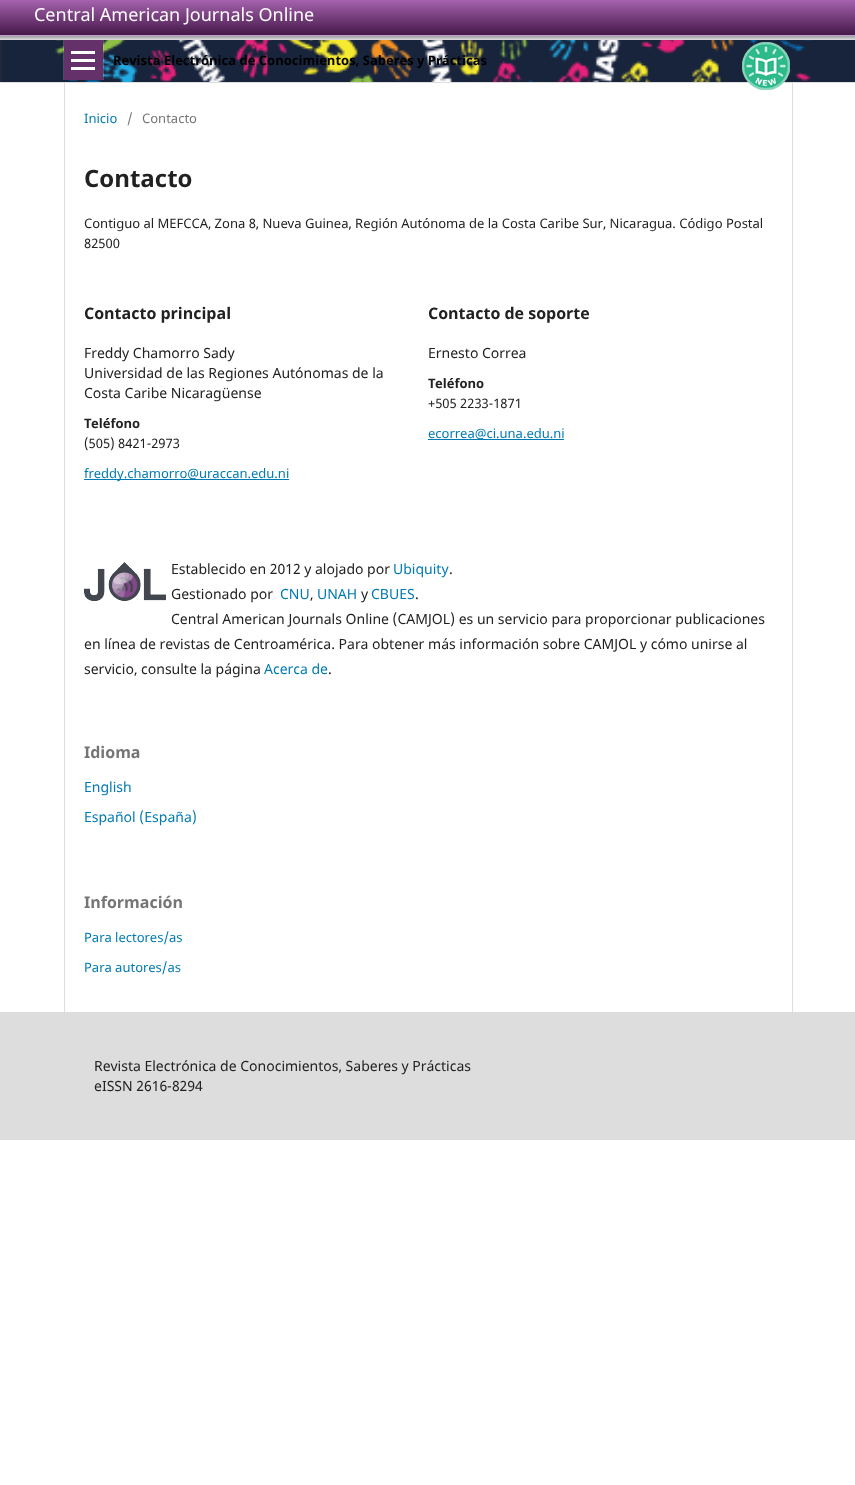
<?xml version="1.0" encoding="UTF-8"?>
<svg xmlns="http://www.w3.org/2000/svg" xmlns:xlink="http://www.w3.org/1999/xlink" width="855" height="1485">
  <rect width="100%" height="100%" fill="#ffffff" />
  <image x="0" y="40" width="855" height="42" xlink:href="image1.png" />
  <rect y="82" width="855" height="1" fill="#dddddd" />
  <image x="0" y="0" width="855" height="40" xlink:href="image2.png" />
  <rect x="63" y="40" width="1" height="40" fill="#ffffff" fill-opacity="0.2" />
  <rect x="103" y="40" width="1" height="40" fill="#ffffff" fill-opacity="0.2" />
  <rect x="64" y="40" width="39" height="40" fill="#64316a" />
  <rect x="71" y="67" width="24" height="3" fill="#ffffff" />
  <rect x="71" y="51" width="24" height="3" fill="#ffffff" />
  <rect x="71" y="59" width="24" height="3" fill="#ffffff" />
  <image x="742" y="42" width="48" height="48" xlink:href="image3.png" />
  <rect x="64" y="83" width="1" height="929" fill="#dddddd" />
  <rect x="84" y="479" width="205" height="1" fill="#007ab2" />
  <rect x="428" y="439" width="136" height="1" fill="#007ab2" />
  <rect x="792" y="83" width="1" height="929" fill="#dddddd" />
  <image x="84" y="562" width="82" height="39" xlink:href="image4.png" />
  <rect y="1012" width="855" height="128" fill="#dddddd" />
  <text x="34" y="21" style="font-family: Noto Sans; font-size: 18px; fill: #ffffff">Central American Journals Online</text>
  <text x="113" y="65" style="font-family: Noto Sans; font-size: 13.02px; font-weight: bold; fill: #000000">Revista Electrónica de Conocimientos, Saberes y Prácticas</text>
  <text x="84" y="123" style="font-family: Noto Sans; font-size: 13.02px; fill: #007ab2">Inicio</text>
  <text x="127" y="123" style="font-family: Noto Sans; font-size: 13.02px; fill: #757575">/</text>
  <text x="142" y="123" style="font-family: Noto Sans; font-size: 13.02px; fill: #757575">Contacto</text>
  <text x="84" y="187" style="font-family: Noto Sans; font-size: 24px; font-weight: bold; fill: #212121">Contacto</text>
  <text x="84" y="228" style="font-family: Noto Sans; font-size: 13.02px; fill: #212121">Contiguo al MEFCCA, Zona 8, Nueva Guinea, Región Autónoma de la Costa Caribe Sur, Nicaragua. Código Postal</text>
  <text x="84" y="248" style="font-family: Noto Sans; font-size: 13.02px; fill: #212121">82500</text>
  <text x="84" y="319" style="font-family: Noto Sans; font-size: 16px; font-weight: bold; fill: #212121">Contacto principal</text>
  <text x="84" y="358" style="font-family: Noto Sans; font-size: 14px; fill: #212121">Freddy Chamorro Sady</text>
  <text x="84" y="378" style="font-family: Noto Sans; font-size: 14px; fill: #212121">Universidad de las Regiones Autónomas de la</text>
  <text x="84" y="398" style="font-family: Noto Sans; font-size: 14px; fill: #212121">Costa Caribe Nicaragüense</text>
  <text x="84" y="428" style="font-family: Noto Sans; font-size: 13.02px; font-weight: bold; fill: #212121">Teléfono</text>
  <text x="84" y="448" style="font-family: Noto Sans; font-size: 13.02px; fill: #212121">(505) 8421-2973</text>
  <text x="84" y="478" style="font-family: Noto Sans; font-size: 13.02px; fill: #007ab2">freddy.chamorro@uraccan.edu.ni</text>
  <text x="428" y="319" style="font-family: Noto Sans; font-size: 16px; font-weight: bold; fill: #212121">Contacto de soporte</text>
  <text x="428" y="358" style="font-family: Noto Sans; font-size: 14px; fill: #212121">Ernesto Correa</text>
  <text x="428" y="388" style="font-family: Noto Sans; font-size: 13.02px; font-weight: bold; fill: #212121">Teléfono</text>
  <text x="428" y="408" style="font-family: Noto Sans; font-size: 13.02px; fill: #212121">+505 2233-1871</text>
  <text x="428" y="438" style="font-family: Noto Sans; font-size: 13.02px; fill: #007ab2">ecorrea@ci.una.edu.ni</text>
  <text x="171" y="574" style="font-family: Noto Sans; font-size: 14px; fill: #212121">Establecido en 2012 y alojado por</text>
  <text x="393" y="574" style="font-family: Noto Sans; font-size: 14px; fill: #007ab2">Ubiquity</text>
  <text x="449" y="574" style="font-family: Noto Sans; font-size: 14px; fill: #212121">.</text>
  <text x="171" y="599" style="font-family: Noto Sans; font-size: 14px; fill: #212121">Gestionado por</text>
  <text x="280" y="599" style="font-family: Noto Sans; font-size: 14px; fill: #007ab2">CNU</text>
  <text x="310" y="599" style="font-family: Noto Sans; font-size: 14px; fill: #212121">,</text>
  <text x="317" y="599" style="font-family: Noto Sans; font-size: 14px; fill: #007ab2">UNAH</text>
  <text x="361" y="599" style="font-family: Noto Sans; font-size: 14px; fill: #212121">y</text>
  <text x="371" y="599" style="font-family: Noto Sans; font-size: 14px; fill: #007ab2">CBUES</text>
  <text x="415" y="599" style="font-family: Noto Sans; font-size: 14px; fill: #212121">.</text>
  <text x="171" y="624" style="font-family: Noto Sans; font-size: 14px; fill: #212121">Central American Journals Online (CAMJOL) es un servicio para proporcionar publicaciones</text>
  <text x="84" y="649" style="font-family: Noto Sans; font-size: 14px; fill: #212121">en línea de revistas de Centroamérica. Para obtener más información sobre CAMJOL y cómo unirse al</text>
  <text x="84" y="674" style="font-family: Noto Sans; font-size: 14px; fill: #212121">servicio, consulte la página</text>
  <text x="264" y="674" style="font-family: Noto Sans; font-size: 14px; fill: #007ab2">Acerca de</text>
  <text x="328" y="674" style="font-family: Noto Sans; font-size: 14px; fill: #212121">.</text>
  <text x="84" y="758" style="font-family: Noto Sans; font-size: 16px; font-weight: bold; fill: #757575">Idioma</text>
  <text x="84" y="792" style="font-family: Noto Sans; font-size: 14px; fill: #007ab2">English</text>
  <text x="84" y="822" style="font-family: Noto Sans; font-size: 14px; fill: #007ab2">Español (España)</text>
  <text x="84" y="908" style="font-family: Noto Sans; font-size: 16px; font-weight: bold; fill: #757575">Información</text>
  <text x="84" y="942" style="font-family: Noto Sans; font-size: 13.02px; fill: #007ab2">Para lectores/as</text>
  <text x="84" y="972" style="font-family: Noto Sans; font-size: 13.02px; fill: #007ab2">Para autores/as</text>
  <text x="94" y="1071" style="font-family: Noto Sans; font-size: 14px; fill: #212121">Revista Electrónica de Conocimientos, Saberes y Prácticas</text>
  <text x="94" y="1091" style="font-family: Noto Sans; font-size: 14px; fill: #212121">eISSN 2616-8294</text>
</svg>
